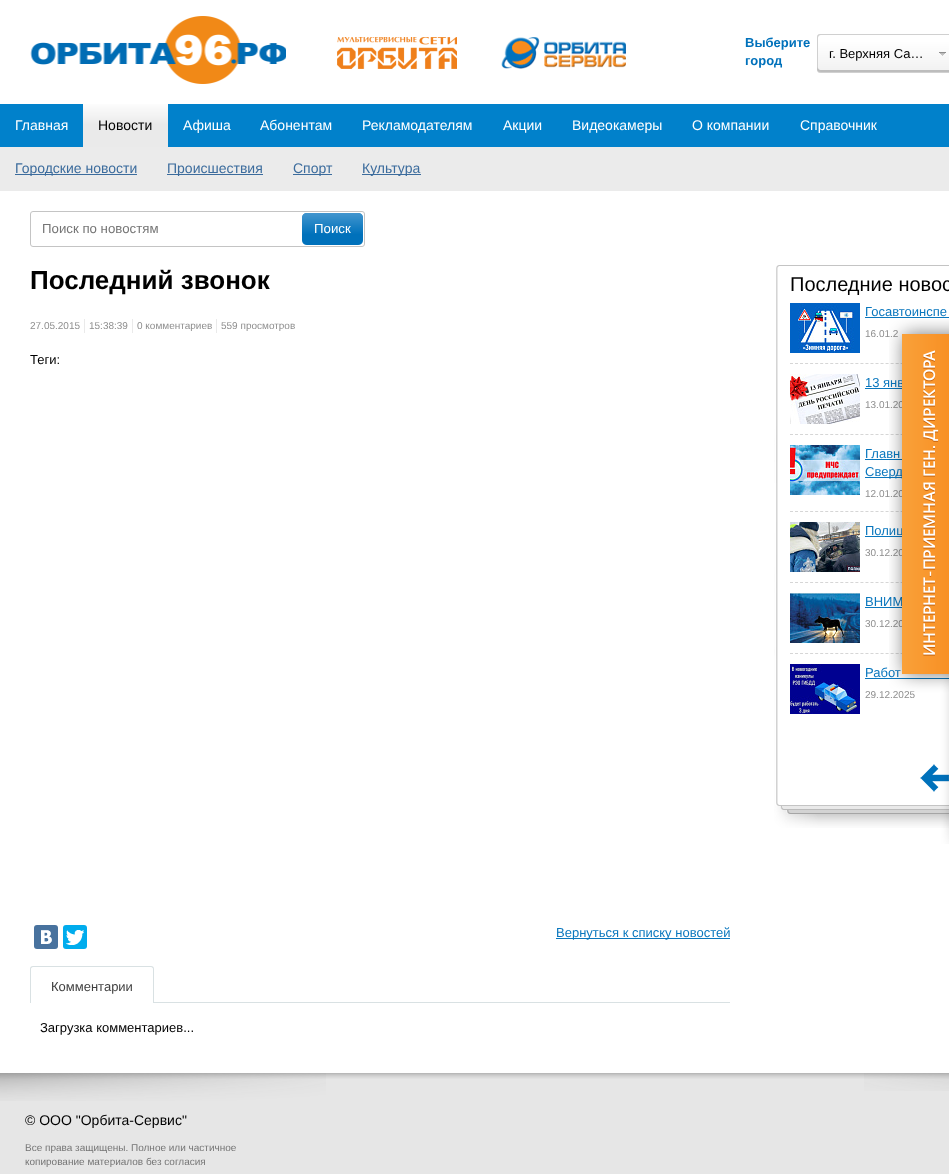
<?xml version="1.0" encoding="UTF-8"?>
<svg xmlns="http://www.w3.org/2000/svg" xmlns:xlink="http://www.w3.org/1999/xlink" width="949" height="1174">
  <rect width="100%" height="100%" fill="#ffffff" />
  <image x="30" y="16" width="256" height="68" xlink:href="image1.png" />
  <image x="337" y="37" width="120" height="32" xlink:href="image2.png" />
  <image x="501" y="37" width="125" height="32" xlink:href="image3.png" />
  <image x="817" y="34" width="132" height="39" xlink:href="image4.png" />
  <image x="939" y="52" width="7" height="4" xlink:href="image5.png" />
  <rect y="104" width="949" height="43" fill="#0181cb" />
  <image x="83" y="104" width="85" height="43" xlink:href="image6.png" />
  <rect y="147" width="949" height="44" fill="#ebebeb" />
  <rect x="15" y="174" width="122" height="1" fill="#3c6c9d" />
  <rect x="167" y="174" width="96" height="1" fill="#3c6c9d" />
  <rect x="293" y="174" width="39" height="1" fill="#3c6c9d" />
  <rect x="362" y="174" width="59" height="1" fill="#3c6c9d" />
  <rect x="30.5" y="211.5" width="334" height="35" rx="2.5" fill="none" stroke="#c4c4c4" />
  <image x="302" y="213" width="61" height="32" xlink:href="image7.png" />
  <rect x="84" y="319" width="1" height="14" fill="#eaeaea" />
  <rect x="132" y="319" width="1" height="14" fill="#eaeaea" />
  <rect x="216" y="319" width="1" height="14" fill="#eaeaea" />
  <rect x="34" y="925" width="24" height="24" rx="3" fill="#48729e" />
  <image x="41" y="930" width="11" height="14" xlink:href="image8.png" />
  <rect x="63" y="925" width="24" height="24" rx="3" fill="#00aced" />
  <image x="66" y="930" width="18" height="15" xlink:href="image9.png" />
  <rect x="556" y="938" width="174" height="1" fill="#0a77be" />
  <image x="774" y="265" width="175" height="563" xlink:href="image10.png" />
  <image x="790" y="303" width="70" height="50" xlink:href="image11.png" />
  <rect x="865" y="317" width="84" height="1" fill="#0a77be" />
  <image x="790" y="374" width="70" height="50" xlink:href="image12.png" />
  <path d="M 790 363.5 h 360" fill="none" stroke="#d6d6d6" stroke-dasharray="3 2.03" />
  <rect x="865" y="388" width="37" height="1" fill="#0a77be" />
  <image x="790" y="445" width="70" height="50" xlink:href="image13.png" />
  <path d="M 790 434.5 h 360" fill="none" stroke="#d6d6d6" stroke-dasharray="3 2.03" />
  <rect x="865" y="459" width="37" height="1" fill="#0a77be" />
  <rect x="865" y="477" width="37" height="1" fill="#0a77be" />
  <image x="790" y="522" width="70" height="50" xlink:href="image14.png" />
  <path d="M 790 511.5 h 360" fill="none" stroke="#d6d6d6" stroke-dasharray="3 2.03" />
  <rect x="865" y="536" width="37" height="1" fill="#0a77be" />
  <image x="790" y="593" width="70" height="50" xlink:href="image15.png" />
  <path d="M 790 582.5 h 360" fill="none" stroke="#d6d6d6" stroke-dasharray="3 2.03" />
  <rect x="865" y="607" width="37" height="1" fill="#0a77be" />
  <image x="790" y="664" width="70" height="50" xlink:href="image16.png" />
  <path d="M 790 653.5 h 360" fill="none" stroke="#d6d6d6" stroke-dasharray="3 2.03" />
  <rect x="865" y="678" width="84" height="1" fill="#0a77be" />
  <image x="920" y="764" width="29" height="28" xlink:href="image17.png" />
  <rect x="30" y="1002" width="700" height="1" fill="#d9e1e3" />
  <path d="M 33 966 h 118 c 2 0 3 1 3 3 v 33 h -124 v -33 c 0 -2 1 -3 3 -3 z m 0 1 h 118 c 1 0 2 1 2 2 v 33 h -122 v -33 c 0 -1 1 -2 2 -2 z" fill="#d9e1e3" fill-rule="evenodd" />
  <rect x="31" y="1002" width="122" height="1" fill="#ffffff" />
  <rect y="1079" width="949" height="95" fill="#e6e6e6" />
  <image x="0" y="1073" width="949" height="6" xlink:href="image19.png" />
  <image x="0" y="1073" width="326" height="28" xlink:href="image20.png" />
  <image x="864" y="1073" width="85" height="18" xlink:href="image21.png" />
  <text x="745" y="47" style="font-family: Liberation Sans; font-size: 13px; font-weight: bold; fill: #0071bb">Выберите</text>
  <text x="745" y="65" style="font-family: Liberation Sans; font-size: 13px; font-weight: bold; fill: #0071bb">город</text>
  <text x="829" y="58" style="font-family: Liberation Sans; font-size: 13px; fill: #000000">г. Верхняя Са…</text>
  <text x="15" y="130" style="font-family: Liberation Sans; font-size: 14px; fill: #ffffff">Главная</text>
  <text x="183" y="130" style="font-family: Liberation Sans; font-size: 14px; fill: #ffffff">Афиша</text>
  <text x="260" y="130" style="font-family: Liberation Sans; font-size: 14px; fill: #ffffff">Абонентам</text>
  <text x="98" y="130" style="font-family: Liberation Sans; font-size: 14px; fill: #000000">Новости</text>
  <text x="15" y="173" style="font-family: Liberation Sans; font-size: 14px; fill: #3c6c9d">Городские новости</text>
  <text x="167" y="173" style="font-family: Liberation Sans; font-size: 14px; fill: #3c6c9d">Происшествия</text>
  <text x="293" y="173" style="font-family: Liberation Sans; font-size: 14px; fill: #3c6c9d">Спорт</text>
  <text x="362" y="173" style="font-family: Liberation Sans; font-size: 14px; fill: #3c6c9d">Культура</text>
  <text x="362" y="130" style="font-family: Liberation Sans; font-size: 14px; fill: #ffffff">Рекламодателям</text>
  <text x="503" y="130" style="font-family: Liberation Sans; font-size: 14px; fill: #ffffff">Акции</text>
  <text x="572" y="130" style="font-family: Liberation Sans; font-size: 14px; fill: #ffffff">Видеокамеры</text>
  <text x="692" y="130" style="font-family: Liberation Sans; font-size: 14px; fill: #ffffff">О компании</text>
  <text x="800" y="130" style="font-family: Liberation Sans; font-size: 14px; fill: #ffffff">Справочник</text>
  <text x="42" y="233" style="font-family: Liberation Sans; font-size: 13.25px; fill: #757575">Поиск по новостям</text>
  <text x="314" y="233" style="font-family: Liberation Sans; font-size: 13.25px; fill: #ffffff">Поиск</text>
  <text x="30" y="289" style="font-family: Liberation Sans; font-size: 26px; font-weight: bold; fill: #000000">Последний звонок</text>
  <text x="30" y="329" style="font-family: Liberation Sans; font-size: 10px; fill: #8e8e8e">27.05.2015</text>
  <text x="89" y="329" style="font-family: Liberation Sans; font-size: 10px; fill: #8e8e8e">15:38:39</text>
  <text x="137" y="329" style="font-family: Liberation Sans; font-size: 10px; fill: #8e8e8e">0 комментариев</text>
  <text x="221" y="329" style="font-family: Liberation Sans; font-size: 10px; fill: #8e8e8e">559 просмотров</text>
  <text x="30" y="364" style="font-family: Liberation Sans; font-size: 13px; fill: #000000">Теги:</text>
  <text x="556" y="937" style="font-family: Liberation Sans; font-size: 13px; fill: #0a77be">Вернуться к списку новостей</text>
  <text x="790" y="291" style="font-family: Liberation Sans; font-size: 20px; fill: #000000">Последние новос</text>
  <text x="865" y="316" style="font-family: Liberation Sans; font-size: 13px; fill: #0a77be">Госавтоинспе</text>
  <text x="865" y="337" style="font-family: Liberation Sans; font-size: 10px; fill: #8e8e8e">16.01.2</text>
  <text x="865" y="387" style="font-family: Liberation Sans; font-size: 13px; fill: #0a77be">13 янв</text>
  <text x="865" y="408" style="font-family: Liberation Sans; font-size: 10px; fill: #8e8e8e">13.01.20</text>
  <text x="865" y="458" style="font-family: Liberation Sans; font-size: 13px; fill: #0a77be">Главн</text>
  <text x="865" y="476" style="font-family: Liberation Sans; font-size: 13px; fill: #0a77be">Сверд</text>
  <text x="865" y="497" style="font-family: Liberation Sans; font-size: 10px; fill: #8e8e8e">12.01.20</text>
  <text x="865" y="535" style="font-family: Liberation Sans; font-size: 13px; fill: #0a77be">Полиц</text>
  <text x="865" y="556" style="font-family: Liberation Sans; font-size: 10px; fill: #8e8e8e">30.12.20</text>
  <text x="865" y="606" style="font-family: Liberation Sans; font-size: 13px; fill: #0a77be">ВНИМ</text>
  <text x="865" y="627" style="font-family: Liberation Sans; font-size: 10px; fill: #8e8e8e">30.12.20</text>
  <text x="865" y="677" style="font-family: Liberation Sans; font-size: 13px; fill: #0a77be">Работ</text>
  <text x="865" y="698" style="font-family: Liberation Sans; font-size: 10px; fill: #8e8e8e">29.12.2025</text>
  <text x="51" y="991" style="font-family: Liberation Sans; font-size: 13px; fill: #3f3f3f">Комментарии</text>
  <text x="40" y="1032" style="font-family: Liberation Sans; font-size: 13px; fill: #000000">Загрузка комментариев...</text>
  <image x="889" y="319" width="60" height="525" xlink:href="image18.png" />
  <text x="25" y="1125" style="font-family: Liberation Sans; font-size: 14px; fill: #000000">© ООО "Орбита-Сервис"</text>
  <text x="25" y="1151" style="font-family: Liberation Sans; font-size: 10px; fill: #757575">Все права защищены. Полное или частичное</text>
  <text x="25" y="1165" style="font-family: Liberation Sans; font-size: 10px; fill: #757575">копирование материалов без согласия</text>
</svg>
